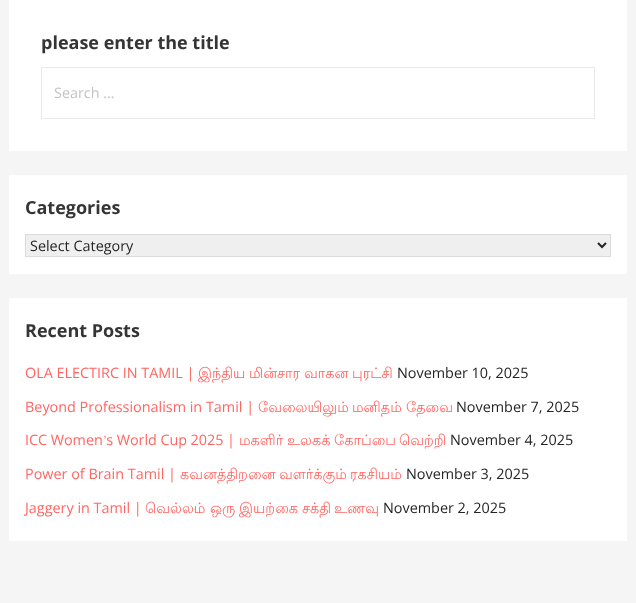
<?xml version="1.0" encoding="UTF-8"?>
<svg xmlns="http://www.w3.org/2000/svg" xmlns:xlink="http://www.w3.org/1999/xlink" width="636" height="603">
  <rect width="100%" height="100%" fill="#f5f5f5" />
  <rect x="9" width="618" height="151" fill="#ffffff" />
  <rect x="41.5" y="67.5" width="553" height="51" fill="none" stroke="#e9e9e9" />
  <rect x="9" y="175" width="618" height="99" fill="#ffffff" />
  <rect x="25.5" y="234.5" width="585" height="22" fill="#efefef" stroke="#dbdbdb" />
  <path d="M 598 243 l 4 4 l 4 -4" fill="none" stroke="#252525" stroke-width="2" />
  <rect x="9" y="298" width="618" height="243" fill="#ffffff" />
  <text x="41" y="49" style="font-family: Open Sans; font-size: 18px; font-weight: bold; fill: #353535">please enter the title</text>
  <text x="54" y="98" style="font-family: Open Sans; font-size: 14.4px; fill: #c4c4c4">Search …</text>
  <text x="25" y="214" style="font-family: Open Sans; font-size: 18px; font-weight: bold; fill: #353535">Categories</text>
  <text x="30" y="251" style="font-family: Open Sans; font-size: 14.4px; fill: #252525">Select Category</text>
  <text x="25" y="337" style="font-family: Open Sans; font-size: 18px; font-weight: bold; fill: #353535">Recent Posts</text>
  <text x="25" y="378" style="font-family: Open Sans; font-size: 14.4px; fill: #ff6663">OLA ELECTIRC IN TAMIL |</text>
  <text x="198" y="378" style="font-family: Lohit Tamil; font-size: 14.4px; fill: #ff6663">இந்திய</text>
  <text x="249" y="378" style="font-family: Lohit Tamil; font-size: 14.4px; fill: #ff6663">மின்சார</text>
  <text x="304" y="378" style="font-family: Lohit Tamil; font-size: 14.4px; fill: #ff6663">வாகன</text>
  <text x="352" y="378" style="font-family: Lohit Tamil; font-size: 14.4px; fill: #ff6663">புரட்சி</text>
  <text x="397" y="378" style="font-family: Open Sans; font-size: 14.4px; fill: #252525">November 10, 2025</text>
  <text x="25" y="412" style="font-family: Open Sans; font-size: 14.4px; fill: #ff6663">Beyond Professionalism in Tamil |</text>
  <text x="258" y="412" style="font-family: Lohit Tamil; font-size: 14.4px; fill: #ff6663">வேலையிலும்</text>
  <text x="352" y="412" style="font-family: Lohit Tamil; font-size: 14.4px; fill: #ff6663">மனிதம்</text>
  <text x="406" y="412" style="font-family: Lohit Tamil; font-size: 14.4px; fill: #ff6663">தேவை</text>
  <text x="456" y="412" style="font-family: Open Sans; font-size: 14.4px; fill: #252525">November 7, 2025</text>
  <text x="25" y="445" word-spacing="-0.25" style="font-family: Open Sans; font-size: 14.4px; fill: #ff6663">ICC Women s World Cup 2025 |</text>
  <text x="239" y="445" style="font-family: Lohit Tamil; font-size: 14.4px; fill: #ff6663">மகளிர்</text>
  <text x="287" y="445" style="font-family: Lohit Tamil; font-size: 14.4px; fill: #ff6663">உலகக்</text>
  <text x="334" y="445" style="font-family: Lohit Tamil; font-size: 14.4px; fill: #ff6663">கோப்பை</text>
  <text x="399" y="445" style="font-family: Lohit Tamil; font-size: 14.4px; fill: #ff6663">வெற்றி</text>
  <text x="450" y="445" style="font-family: Open Sans; font-size: 14.4px; fill: #252525">November 4, 2025</text>
  <text x="103" y="445" style="font-family: Lohit Tamil; font-size: 14.4px; fill: #ff6663">’</text>
  <text x="25" y="479" style="font-family: Open Sans; font-size: 14.4px; fill: #ff6663">Power of Brain Tamil |</text>
  <text x="180" y="479" style="font-family: Lohit Tamil; font-size: 14.4px; fill: #ff6663">கவனத்திறனை</text>
  <text x="279" y="479" style="font-family: Lohit Tamil; font-size: 14.4px; fill: #ff6663">வளர்க்கும்</text>
  <text x="350" y="479" style="font-family: Lohit Tamil; font-size: 14.4px; fill: #ff6663">ரகசியம்</text>
  <text x="406" y="479" style="font-family: Open Sans; font-size: 14.4px; fill: #252525">November 3, 2025</text>
  <text x="25" y="513" style="font-family: Open Sans; font-size: 14.4px; fill: #ff6663">Jaggery in Tamil |</text>
  <text x="145" y="513" style="font-family: Lohit Tamil; font-size: 14.4px; fill: #ff6663">வெல்லம்</text>
  <text x="210" y="513" style="font-family: Lohit Tamil; font-size: 14.4px; fill: #ff6663">ஒரு</text>
  <text x="239" y="513" style="font-family: Lohit Tamil; font-size: 14.4px; fill: #ff6663">இயற்கை</text>
  <text x="302" y="513" style="font-family: Lohit Tamil; font-size: 14.4px; fill: #ff6663">சக்தி</text>
  <text x="334" y="513" style="font-family: Lohit Tamil; font-size: 14.4px; fill: #ff6663">உணவு</text>
  <text x="383" y="513" style="font-family: Open Sans; font-size: 14.4px; fill: #252525">November 2, 2025</text>
</svg>
